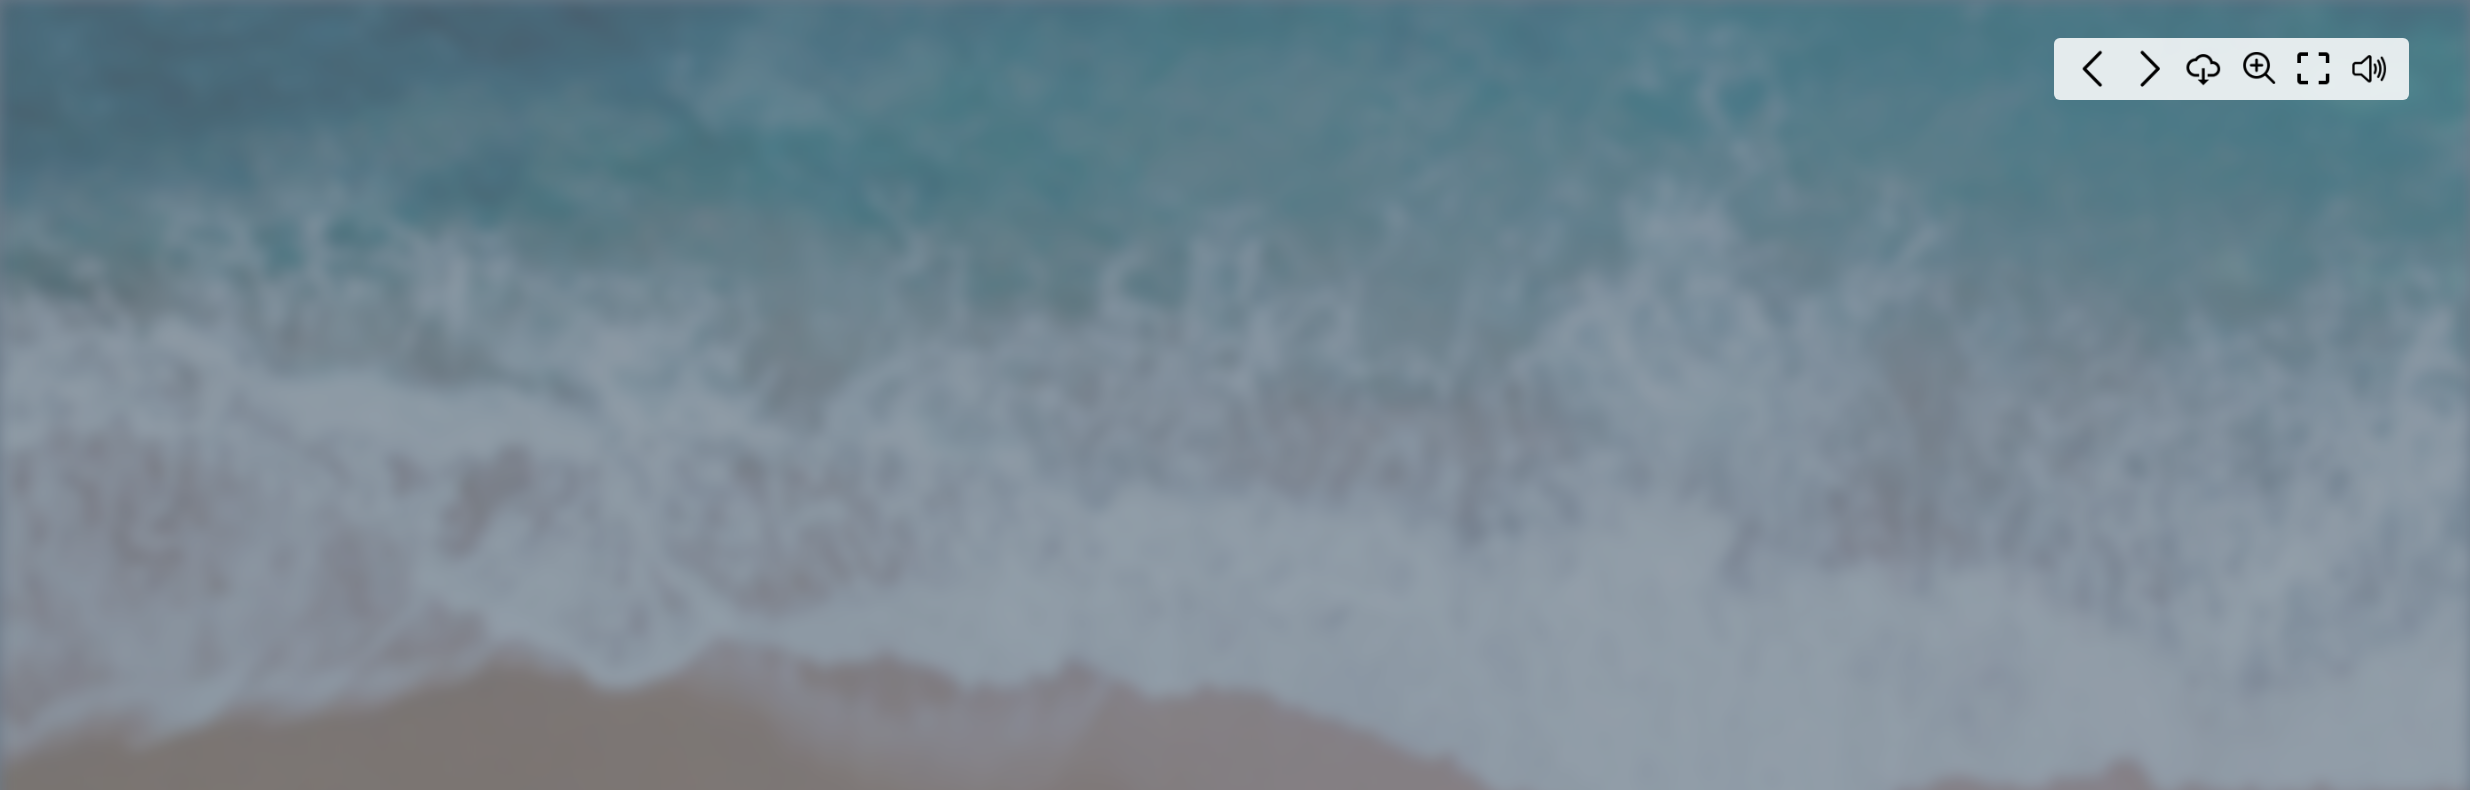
<?xml version="1.0" encoding="UTF-8"?>
<svg xmlns="http://www.w3.org/2000/svg" xmlns:xlink="http://www.w3.org/1999/xlink" width="2470" height="790">
  <rect width="100%" height="100%" fill="#6c7a89" />
  <image x="0" y="0" width="2470" height="790" xlink:href="image1.png" />
  <rect x="2054" y="38" width="355" height="62" rx="6" fill="#ffffff" fill-opacity="0.85" />
  <image x="2082" y="50" width="21" height="37" xlink:href="image2.png" />
  <image x="2140" y="50" width="20" height="37" xlink:href="image3.png" />
  <image x="2186" y="54" width="35" height="32" xlink:href="image4.png" />
  <image x="2243" y="52" width="33" height="32" xlink:href="image5.png" />
  <image x="2297" y="52" width="33" height="33" xlink:href="image6.png" />
  <image x="2352" y="55" width="35" height="28" xlink:href="image7.png" />
</svg>
